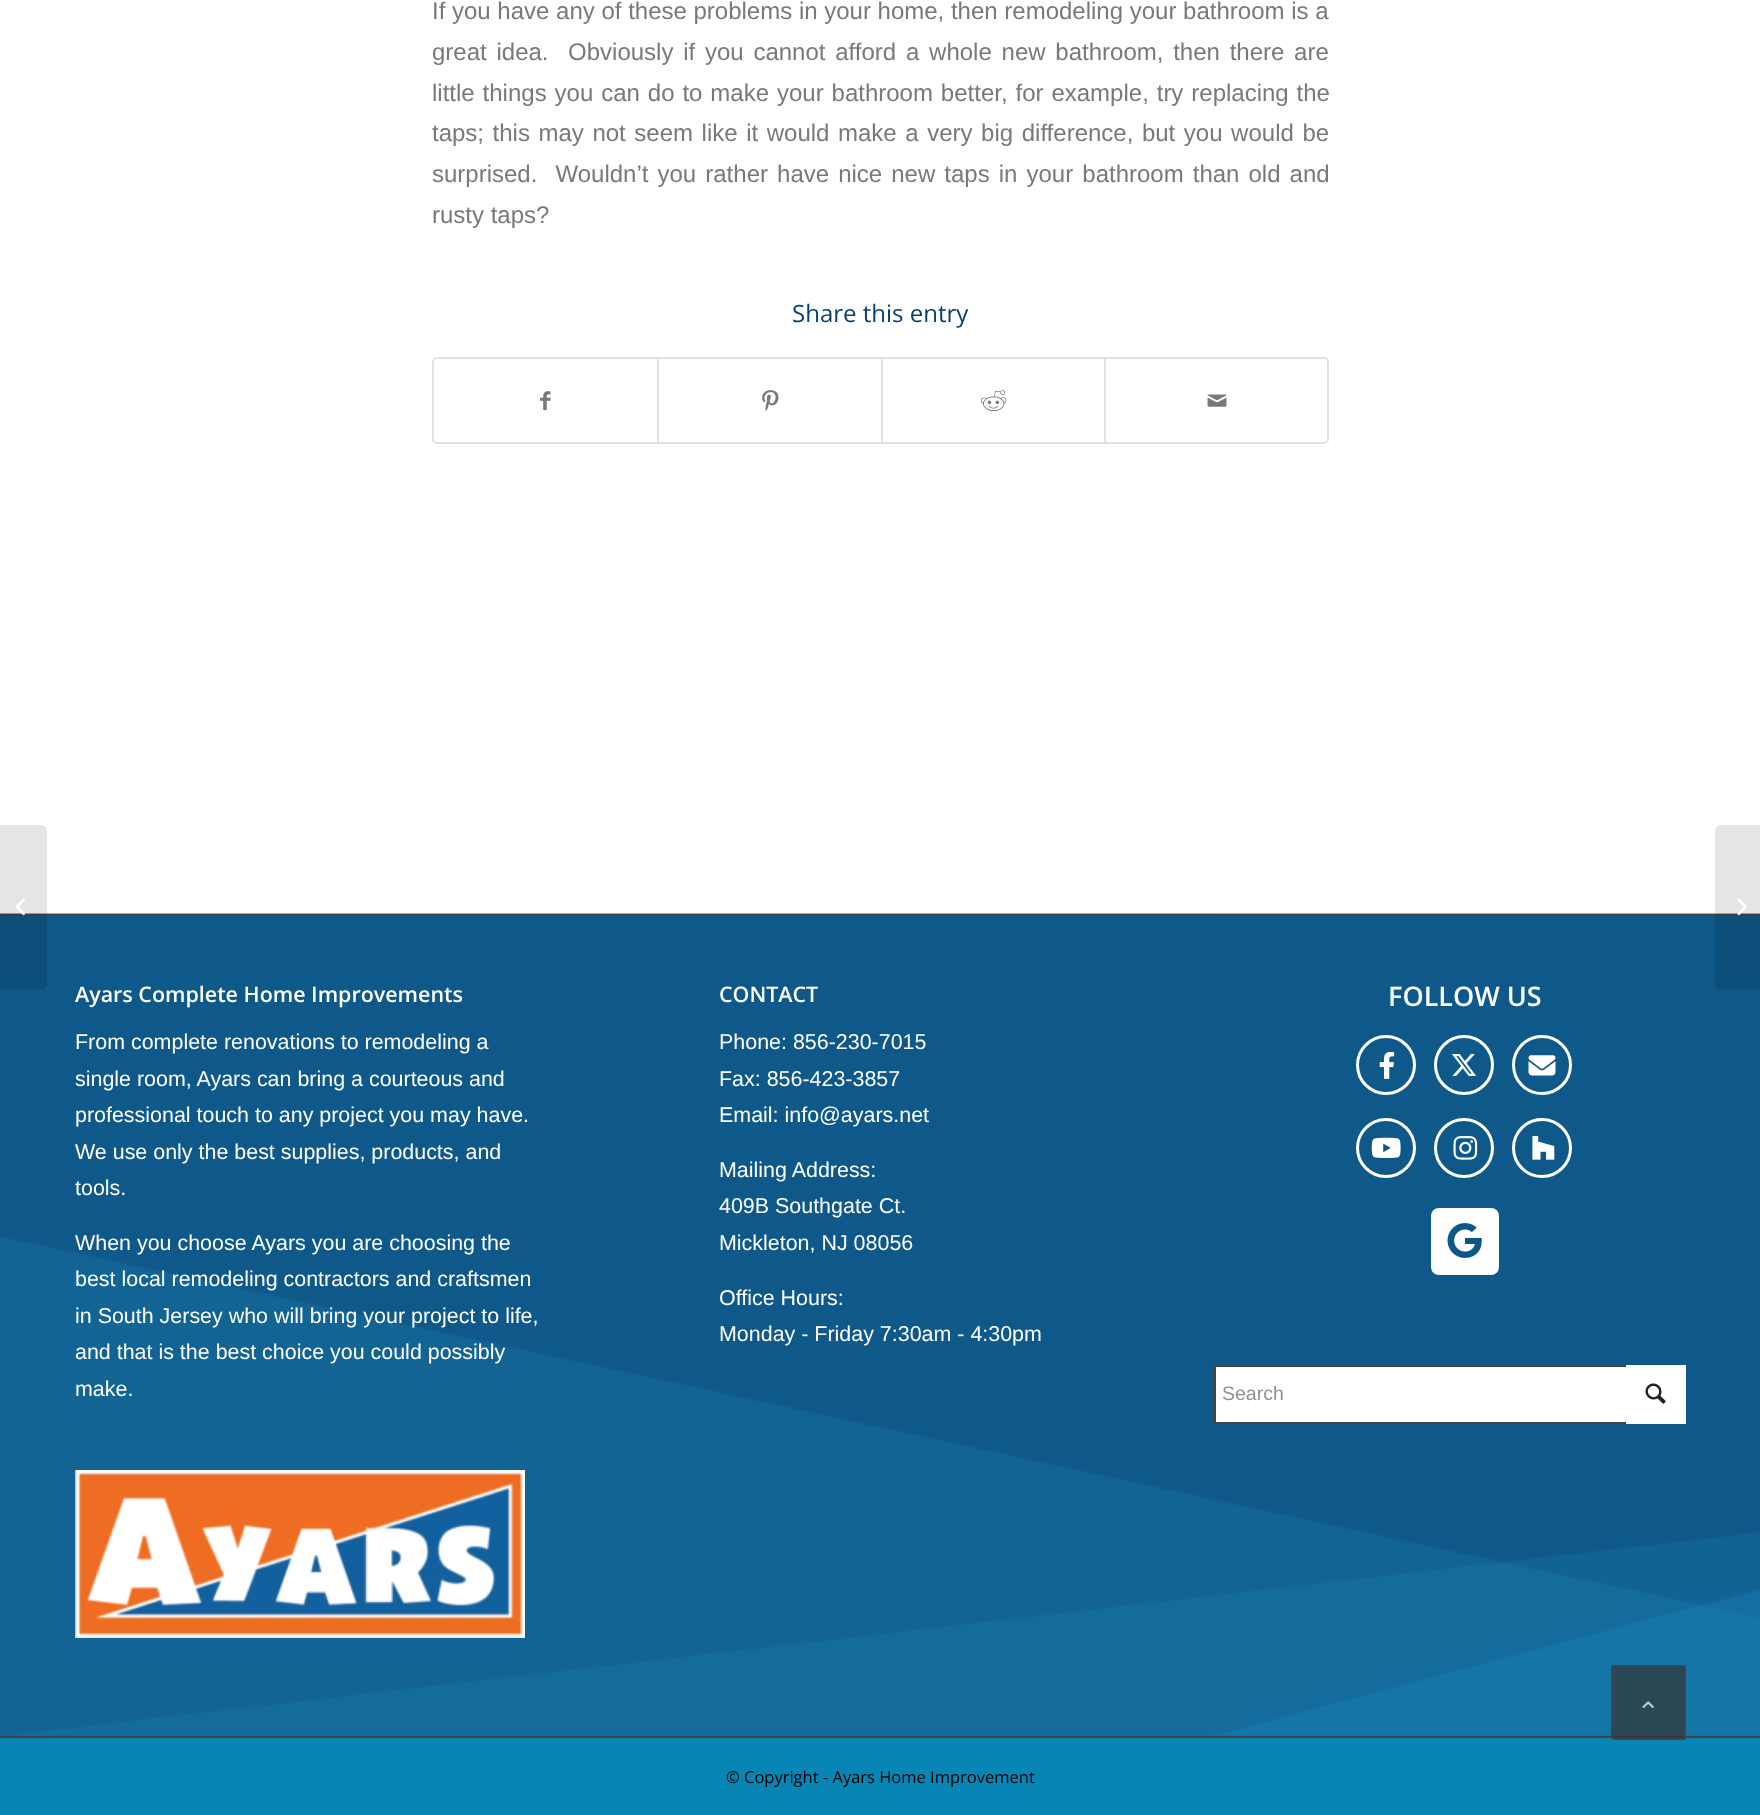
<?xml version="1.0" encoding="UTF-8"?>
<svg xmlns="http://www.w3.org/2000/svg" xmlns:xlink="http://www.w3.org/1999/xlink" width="1760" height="1815">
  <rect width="100%" height="100%" fill="#ffffff" />
  <image x="0" y="913" width="1760" height="823" xlink:href="image6.png" />
  <rect y="914" width="1760" height="2" fill="#444444" />
  <path d="M 0 825 h 41 c 3.5 0 6 2.5 6 6 v 153 c 0 3.5 -2.5 6 -6 6 h -41 z" fill="#000000" fill-opacity="0.1" />
  <image x="15" y="898" width="10" height="18" xlink:href="image1.png" />
  <rect x="433" y="358" width="895" height="85" rx="4" fill="none" stroke="#e1e1e1" stroke-width="2" />
  <image x="540" y="391" width="11" height="20" xlink:href="image2.png" />
  <rect x="657" y="359" width="2" height="84" fill="#e1e1e1" />
  <image x="762" y="390" width="17" height="21" xlink:href="image3.png" />
  <rect x="881" y="359" width="2" height="84" fill="#e1e1e1" />
  <image x="981" y="390" width="26" height="22" xlink:href="image4.png" />
  <rect x="1104" y="359" width="2" height="84" fill="#e1e1e1" />
  <image x="1207" y="394" width="20" height="13" xlink:href="image5.png" />
  <image x="75" y="1470" width="450" height="168" xlink:href="image7.png" />
  <circle cx="1386" cy="1065" r="28.5" fill="none" stroke="#ffffff" stroke-width="3" />
  <image x="1379" y="1051" width="16" height="28" xlink:href="image8.png" />
  <circle cx="1464" cy="1065" r="28.5" fill="none" stroke="#ffffff" stroke-width="3" />
  <image x="1452" y="1054" width="25" height="22" xlink:href="image9.png" />
  <circle cx="1542" cy="1065" r="28.5" fill="none" stroke="#ffffff" stroke-width="3" />
  <image x="1528" y="1055" width="28" height="21" xlink:href="image10.png" />
  <circle cx="1386" cy="1148" r="28.5" fill="none" stroke="#ffffff" stroke-width="3" />
  <image x="1371" y="1137" width="30" height="21" xlink:href="image11.png" />
  <circle cx="1464" cy="1148" r="28.5" fill="none" stroke="#ffffff" stroke-width="3" />
  <image x="1453" y="1136" width="25" height="24" xlink:href="image12.png" />
  <circle cx="1542" cy="1148" r="28.5" fill="none" stroke="#ffffff" stroke-width="3" />
  <image x="1532" y="1136" width="23" height="24" xlink:href="image13.png" />
  <rect x="1431" y="1208" width="68" height="67" rx="8" fill="#ffffff" />
  <image x="1447" y="1223" width="35" height="35" xlink:href="image14.png" />
  <rect x="1216" y="1367" width="410" height="55" fill="#ffffff" />
  <rect x="1215" y="1366" width="470" height="57" fill="none" stroke="#444444" stroke-width="2" />
  <rect x="1626" y="1365" width="60" height="59" fill="#ffffff" />
  <image x="1645" y="1383" width="21" height="21" xlink:href="image15.png" />
  <rect y="1738" width="1760" height="77" fill="#0786b6" />
  <rect y="1736" width="1760" height="2" fill="#444444" />
  <path d="M 1721 825 h 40 v 165 h -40 c -3.5 0 -6 -2.5 -6 -6 v -153 c 0 -3.5 2.5 -6 6 -6 z" fill="#000000" fill-opacity="0.1" />
  <image x="1737" y="898" width="10" height="18" xlink:href="image16.png" />
  <rect x="1611" y="1665" width="75" height="75" rx="3" fill="#333333" fill-opacity="0.7" />
  <rect x="1612" y="1666" width="73" height="73" rx="2" fill="none" stroke="#444444" stroke-opacity="0.7" stroke-width="2" />
  <image x="1642" y="1701" width="12" height="7" xlink:href="image17.png" />
  <text x="432" y="19" style="font-family: Liberation Sans; font-size: 24px; fill: #797979">If you have any of these problems in your home, then remodeling your bathroom is a</text>
  <text x="432" y="60" word-spacing="3.1" style="font-family: Liberation Sans; font-size: 24px; fill: #797979" xml:space="preserve">great idea.  Obviously if you cannot afford a whole new bathroom, then there are</text>
  <text x="432" y="101" word-spacing="1.25" style="font-family: Liberation Sans; font-size: 24px; fill: #797979">little things you can do to make your bathroom better, for example, try replacing the</text>
  <text x="432" y="141" word-spacing="1.9" style="font-family: Liberation Sans; font-size: 24px; fill: #797979">taps; this may not seem like it would make a very big difference, but you would be</text>
  <text x="432" y="182" word-spacing="2.4" style="font-family: Liberation Sans; font-size: 24px; fill: #797979" xml:space="preserve">surprised.  Wouldn’t you rather have nice new taps in your bathroom than old and</text>
  <text x="432" y="223" style="font-family: Liberation Sans; font-size: 24px; fill: #797979">rusty taps?</text>
  <text x="792" y="322" style="font-family: Open Sans; font-size: 24px; fill: #08416f">Share this entry</text>
  <text x="75" y="1002" style="font-family: Open Sans; font-size: 21.45px; font-weight: 600; fill: #ffffff">Ayars Complete Home Improvements</text>
  <text x="75" y="1049" style="font-family: Liberation Sans; font-size: 21.45px; fill: #ffffff">From complete renovations to remodeling a</text>
  <text x="75" y="1086" style="font-family: Liberation Sans; font-size: 21.45px; fill: #ffffff">single room, Ayars can bring a courteous and</text>
  <text x="75" y="1122" style="font-family: Liberation Sans; font-size: 21.45px; fill: #ffffff">professional touch to any project you may have.</text>
  <text x="75" y="1159" style="font-family: Liberation Sans; font-size: 21.45px; fill: #ffffff">We use only the best supplies, products, and</text>
  <text x="75" y="1195" style="font-family: Liberation Sans; font-size: 21.45px; fill: #ffffff">tools.</text>
  <text x="75" y="1250" style="font-family: Liberation Sans; font-size: 21.45px; fill: #ffffff">When you choose Ayars you are choosing the</text>
  <text x="75" y="1286" style="font-family: Liberation Sans; font-size: 21.45px; fill: #ffffff">best local remodeling contractors and craftsmen</text>
  <text x="75" y="1323" style="font-family: Liberation Sans; font-size: 21.45px; fill: #ffffff">in South Jersey who will bring your project to life,</text>
  <text x="75" y="1359" style="font-family: Liberation Sans; font-size: 21.45px; fill: #ffffff">and that is the best choice you could possibly</text>
  <text x="75" y="1396" style="font-family: Liberation Sans; font-size: 21.45px; fill: #ffffff">make.</text>
  <text x="719" y="1002" style="font-family: Open Sans; font-size: 21.45px; font-weight: 600; fill: #ffffff">CONTACT</text>
  <text x="719" y="1049" style="font-family: Liberation Sans; font-size: 21.45px; fill: #ffffff">Phone: 856-230-7015</text>
  <text x="719" y="1086" style="font-family: Liberation Sans; font-size: 21.45px; fill: #ffffff">Fax: 856-423-3857</text>
  <text x="719" y="1122" style="font-family: Liberation Sans; font-size: 21.45px; fill: #ffffff">Email: info@ayars.net</text>
  <text x="719" y="1177" style="font-family: Liberation Sans; font-size: 21.45px; fill: #ffffff">Mailing Address:</text>
  <text x="719" y="1213" style="font-family: Liberation Sans; font-size: 21.45px; fill: #ffffff">409B Southgate Ct.</text>
  <text x="719" y="1250" style="font-family: Liberation Sans; font-size: 21.45px; fill: #ffffff">Mickleton, NJ 08056</text>
  <text x="719" y="1305" style="font-family: Liberation Sans; font-size: 21.45px; fill: #ffffff">Office Hours:</text>
  <text x="719" y="1341" style="font-family: Liberation Sans; font-size: 21.45px; fill: #ffffff">Monday - Friday 7:30am - 4:30pm</text>
  <text x="1388" y="1006" style="font-family: Open Sans; font-size: 27px; font-weight: 600; fill: #ffffff">FOLLOW US</text>
  <text x="1222" y="1400" style="font-family: Liberation Sans; font-size: 19.5px; fill: #919191">Search</text>
  <text x="726" y="1783" style="font-family: Open Sans; font-size: 16.5px; fill: #000000">© Copyright - Ayars Home Improvement</text>
</svg>
